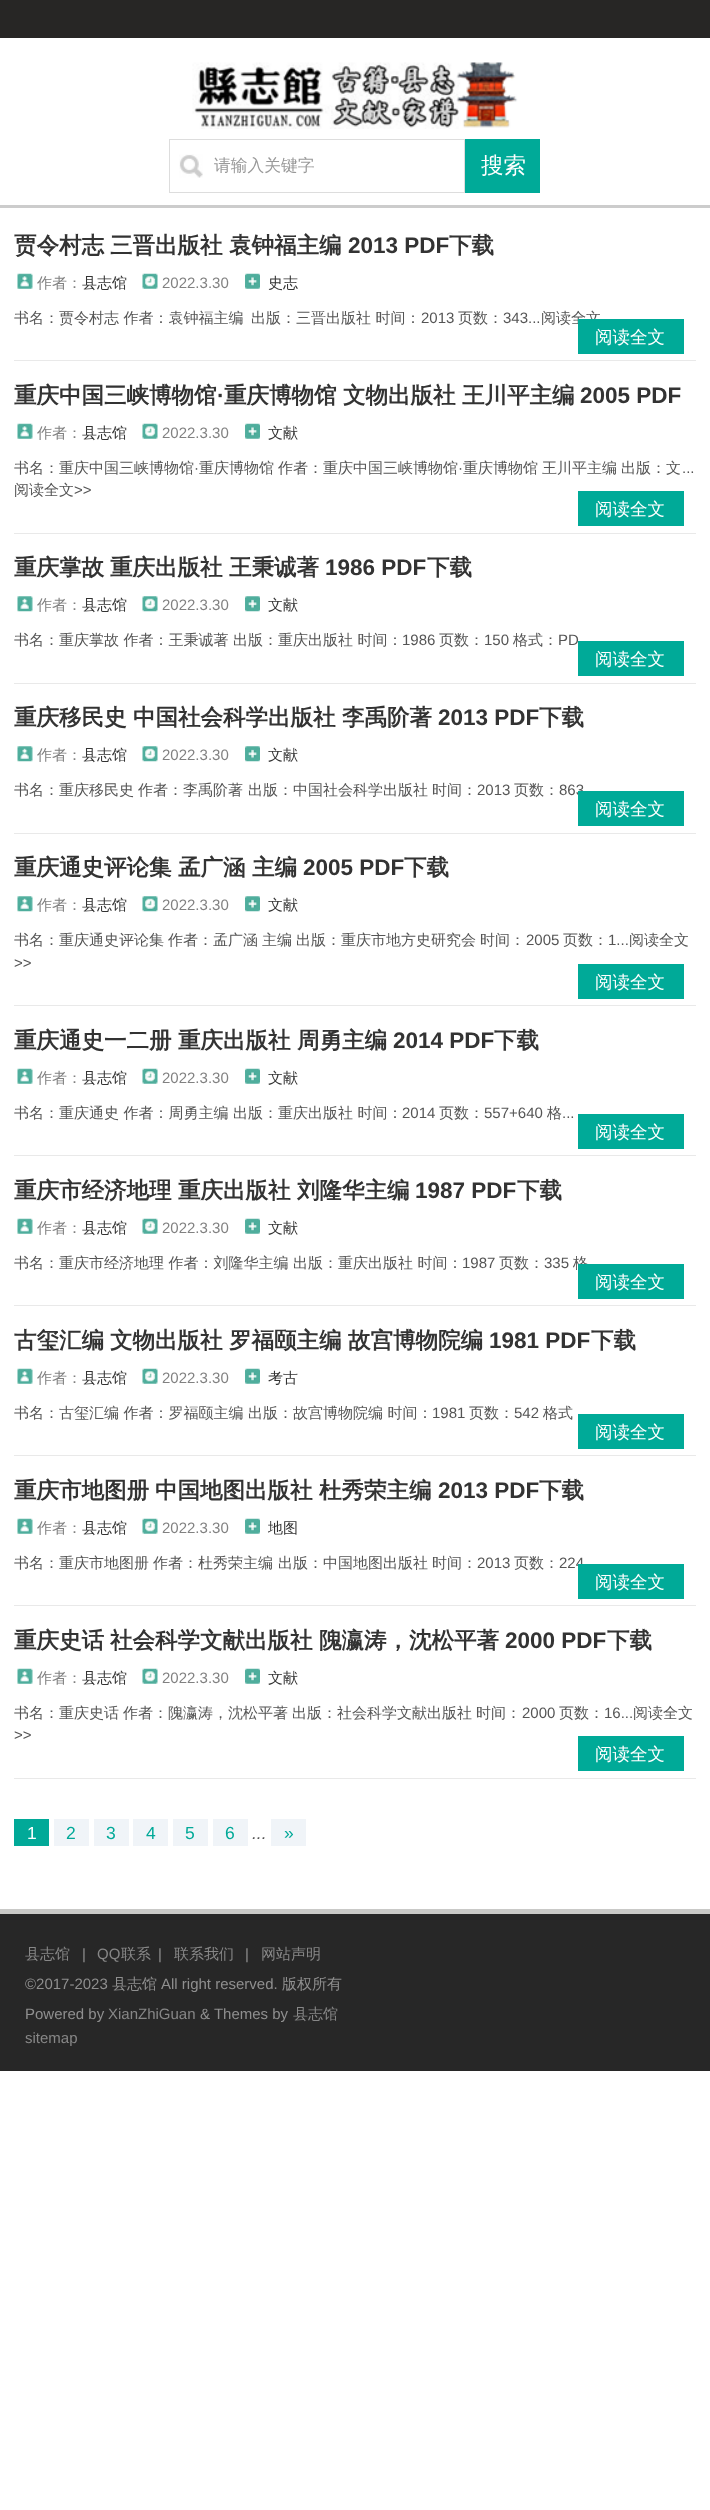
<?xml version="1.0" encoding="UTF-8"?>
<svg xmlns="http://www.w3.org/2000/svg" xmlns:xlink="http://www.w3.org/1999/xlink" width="710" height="2510">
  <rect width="100%" height="100%" fill="#ffffff" />
  <rect width="710" height="38" fill="#272625" />
  <image x="192" y="62" width="326" height="67" xlink:href="image1.png" />
  <image x="179" y="154" width="24" height="24" xlink:href="image2.png" />
  <rect x="169.5" y="139.5" width="295" height="53" fill="none" stroke="#dddddd" />
  <rect x="465" y="139" width="75" height="54" fill="#00aa98" />
  <rect y="205" width="710" height="3" fill="#cccccc" />
  <rect x="14" y="360" width="682" height="1" fill="#e9e9e9" />
  <image x="17" y="273" width="16" height="16" xlink:href="image3.png" />
  <image x="142" y="273" width="16" height="16" xlink:href="image4.png" />
  <image x="245" y="273" width="15" height="16" xlink:href="image5.png" />
  <rect x="14" y="533" width="682" height="1" fill="#e9e9e9" />
  <image x="17" y="423" width="16" height="16" xlink:href="image3.png" />
  <image x="142" y="423" width="16" height="16" xlink:href="image4.png" />
  <image x="245" y="423" width="15" height="16" xlink:href="image5.png" />
  <rect x="578" y="491" width="106" height="35" fill="#00aa98" />
  <rect x="14" y="683" width="682" height="1" fill="#e9e9e9" />
  <image x="17" y="596" width="16" height="16" xlink:href="image6.png" />
  <image x="142" y="596" width="16" height="16" xlink:href="image7.png" />
  <image x="245" y="596" width="15" height="16" xlink:href="image8.png" />
  <rect x="14" y="833" width="682" height="1" fill="#e9e9e9" />
  <image x="17" y="746" width="16" height="16" xlink:href="image6.png" />
  <image x="142" y="746" width="16" height="16" xlink:href="image7.png" />
  <image x="245" y="746" width="15" height="16" xlink:href="image8.png" />
  <rect x="14" y="1005" width="682" height="1" fill="#e9e9e9" />
  <image x="17" y="896" width="16" height="16" xlink:href="image6.png" />
  <image x="142" y="896" width="16" height="16" xlink:href="image7.png" />
  <image x="245" y="896" width="15" height="16" xlink:href="image8.png" />
  <rect x="578" y="964" width="106" height="35" fill="#00aa98" />
  <rect x="14" y="1155" width="682" height="1" fill="#e9e9e9" />
  <image x="17" y="1068" width="16" height="16" xlink:href="image3.png" />
  <image x="142" y="1068" width="16" height="16" xlink:href="image4.png" />
  <image x="245" y="1068" width="15" height="16" xlink:href="image5.png" />
  <rect x="578" y="1114" width="106" height="35" fill="#00aa98" />
  <rect x="14" y="1305" width="682" height="1" fill="#e9e9e9" />
  <image x="17" y="1218" width="16" height="16" xlink:href="image3.png" />
  <image x="142" y="1218" width="16" height="16" xlink:href="image4.png" />
  <image x="245" y="1218" width="15" height="16" xlink:href="image5.png" />
  <rect x="14" y="1455" width="682" height="1" fill="#e9e9e9" />
  <image x="17" y="1368" width="16" height="16" xlink:href="image3.png" />
  <image x="142" y="1368" width="16" height="16" xlink:href="image4.png" />
  <image x="245" y="1368" width="15" height="16" xlink:href="image5.png" />
  <rect x="578" y="1414" width="106" height="35" fill="#00aa98" />
  <rect x="14" y="1605" width="682" height="1" fill="#e9e9e9" />
  <image x="17" y="1518" width="16" height="16" xlink:href="image3.png" />
  <image x="142" y="1518" width="16" height="16" xlink:href="image4.png" />
  <image x="245" y="1518" width="15" height="16" xlink:href="image5.png" />
  <rect x="14" y="1778" width="682" height="1" fill="#e9e9e9" />
  <image x="17" y="1668" width="16" height="16" xlink:href="image3.png" />
  <image x="142" y="1668" width="16" height="16" xlink:href="image4.png" />
  <image x="245" y="1668" width="15" height="16" xlink:href="image5.png" />
  <rect x="578" y="1736" width="106" height="35" fill="#00aa98" />
  <rect x="14" y="1819" width="35" height="27" fill="#01a998" />
  <rect x="54" y="1819" width="35" height="27" fill="#f0f4f8" />
  <rect x="94" y="1819" width="35" height="27" fill="#f0f4f8" />
  <rect x="133" y="1819" width="35" height="27" fill="#f0f4f8" />
  <rect x="173" y="1819" width="35" height="27" fill="#f0f4f8" />
  <rect x="213" y="1819" width="35" height="27" fill="#f0f4f8" />
  <rect x="271" y="1819" width="35" height="27" fill="#f0f4f8" />
  <rect y="1914" width="710" height="157" fill="#272727" />
  <rect y="1909" width="710" height="5" fill="#c9c9c7" />
  <text x="214" y="171" style="font-family: WenQuanYi Zen Hei; font-size: 16.75px; font-weight: 500; fill: #999999">请输入关键字</text>
  <text x="481" y="173" style="font-family: WenQuanYi Zen Hei; font-size: 22.5px; font-weight: 500; fill: #ffffff">搜索</text>
  <text x="14" y="253" style="font-family: WenQuanYi Zen Hei; font-size: 22.5px; font-weight: bold; fill: #333333">贾令村志</text>
  <text x="110" y="253" style="font-family: WenQuanYi Zen Hei; font-size: 22.5px; font-weight: bold; fill: #333333">三晋出版社</text>
  <text x="229" y="253" style="font-family: WenQuanYi Zen Hei; font-size: 22.5px; font-weight: bold; fill: #333333">袁钟福主编</text>
  <text x="348" y="253" style="font-family: Liberation Sans; font-size: 22.5px; font-weight: bold; fill: #333333">2013 PDF</text>
  <text x="449" y="253" style="font-family: WenQuanYi Zen Hei; font-size: 22.5px; font-weight: bold; fill: #333333">下载</text>
  <text x="37" y="288" style="font-family: WenQuanYi Zen Hei; font-size: 15px; font-weight: 500; fill: #818181">作者：</text>
  <text x="82" y="288" style="font-family: WenQuanYi Zen Hei; font-size: 15px; font-weight: 500; fill: #333333">县志馆</text>
  <text x="162" y="288" style="font-family: Liberation Sans; font-size: 15px; fill: #818181">2022.3.30</text>
  <text x="268" y="288" style="font-family: WenQuanYi Zen Hei; font-size: 15px; font-weight: 500; fill: #333333">史志</text>
  <text x="14" y="323" style="font-family: WenQuanYi Zen Hei; font-size: 15px; font-weight: 500; fill: #555555">书名：贾令村志 作者：袁钟福主编</text>
  <text x="251" y="323" style="font-family: WenQuanYi Zen Hei; font-size: 15px; font-weight: 500; fill: #555555">出版：三晋出版社 时间：</text>
  <text x="421" y="323" style="font-family: Liberation Sans; font-size: 15px; fill: #555555">2013</text>
  <text x="458" y="323" style="font-family: WenQuanYi Zen Hei; font-size: 15px; font-weight: 500; fill: #555555">页数：</text>
  <text x="503" y="323" style="font-family: Liberation Sans; font-size: 15px; fill: #555555">343...</text>
  <text x="541" y="323" style="font-family: WenQuanYi Zen Hei; font-size: 15px; font-weight: 500; fill: #555555">阅读全文</text>
  <rect x="578" y="319" width="106" height="35" fill="#00aa98" />
  <text x="595" y="343" style="font-family: WenQuanYi Zen Hei; font-size: 17.5px; font-weight: 500; fill: #ffffff">阅读全文</text>
  <text x="14" y="403" style="font-family: WenQuanYi Zen Hei; font-size: 22.5px; font-weight: bold; fill: #333333">重庆中国三峡博物馆</text>
  <text x="217" y="403" style="font-family: Liberation Sans; font-size: 22.5px; font-weight: bold; fill: #333333">·</text>
  <text x="224" y="403" style="font-family: WenQuanYi Zen Hei; font-size: 22.5px; font-weight: bold; fill: #333333">重庆博物馆</text>
  <text x="343" y="403" style="font-family: WenQuanYi Zen Hei; font-size: 22.5px; font-weight: bold; fill: #333333">文物出版社</text>
  <text x="462" y="403" style="font-family: WenQuanYi Zen Hei; font-size: 22.5px; font-weight: bold; fill: #333333">王川平主编</text>
  <text x="580" y="403" style="font-family: Liberation Sans; font-size: 22.5px; font-weight: bold; fill: #333333">2005 PDF</text>
  <text x="37" y="438" style="font-family: WenQuanYi Zen Hei; font-size: 15px; font-weight: 500; fill: #818181">作者：</text>
  <text x="82" y="438" style="font-family: WenQuanYi Zen Hei; font-size: 15px; font-weight: 500; fill: #333333">县志馆</text>
  <text x="162" y="438" style="font-family: Liberation Sans; font-size: 15px; fill: #818181">2022.3.30</text>
  <text x="268" y="438" style="font-family: WenQuanYi Zen Hei; font-size: 15px; font-weight: 500; fill: #333333">文献</text>
  <text x="14" y="473" style="font-family: WenQuanYi Zen Hei; font-size: 15px; font-weight: 500; fill: #555555">书名：重庆中国三峡博物馆</text>
  <text x="194" y="473" style="font-family: Liberation Sans; font-size: 15px; fill: #555555">·</text>
  <text x="199" y="473" word-spacing="-0.5" style="font-family: WenQuanYi Zen Hei; font-size: 15px; font-weight: 500; fill: #555555">重庆博物馆 作者：重庆中国三峡博物馆</text>
  <text x="458" y="473" style="font-family: Liberation Sans; font-size: 15px; fill: #555555">·</text>
  <text x="463" y="473" word-spacing="-0.5" style="font-family: WenQuanYi Zen Hei; font-size: 15px; font-weight: 500; fill: #555555">重庆博物馆 王川平主编 出版：文</text>
  <text x="682" y="473" style="font-family: Liberation Sans; font-size: 15px; fill: #555555">...</text>
  <text x="14" y="495" style="font-family: WenQuanYi Zen Hei; font-size: 15px; font-weight: 500; fill: #555555">阅读全文</text>
  <text x="74" y="495" style="font-family: Liberation Sans; font-size: 15px; fill: #555555">&gt;&gt;</text>
  <text x="595" y="515" style="font-family: WenQuanYi Zen Hei; font-size: 17.5px; font-weight: 500; fill: #ffffff">阅读全文</text>
  <text x="14" y="575" style="font-family: WenQuanYi Zen Hei; font-size: 22.5px; font-weight: bold; fill: #333333">重庆掌故</text>
  <text x="110" y="575" style="font-family: WenQuanYi Zen Hei; font-size: 22.5px; font-weight: bold; fill: #333333">重庆出版社</text>
  <text x="229" y="575" style="font-family: WenQuanYi Zen Hei; font-size: 22.5px; font-weight: bold; fill: #333333">王秉诚著</text>
  <text x="325" y="575" style="font-family: Liberation Sans; font-size: 22.5px; font-weight: bold; fill: #333333">1986 PDF</text>
  <text x="427" y="575" style="font-family: WenQuanYi Zen Hei; font-size: 22.5px; font-weight: bold; fill: #333333">下载</text>
  <text x="37" y="610" style="font-family: WenQuanYi Zen Hei; font-size: 15px; font-weight: 500; fill: #818181">作者：</text>
  <text x="82" y="610" style="font-family: WenQuanYi Zen Hei; font-size: 15px; font-weight: 500; fill: #333333">县志馆</text>
  <text x="162" y="610" style="font-family: Liberation Sans; font-size: 15px; fill: #818181">2022.3.30</text>
  <text x="268" y="610" style="font-family: WenQuanYi Zen Hei; font-size: 15px; font-weight: 500; fill: #333333">文献</text>
  <text x="14" y="645" style="font-family: WenQuanYi Zen Hei; font-size: 15px; font-weight: 500; fill: #555555">书名：重庆掌故 作者：王秉诚著 出版：重庆出版社 时间：</text>
  <text x="402" y="645" style="font-family: Liberation Sans; font-size: 15px; fill: #555555">1986</text>
  <text x="439" y="645" style="font-family: WenQuanYi Zen Hei; font-size: 15px; font-weight: 500; fill: #555555">页数：</text>
  <text x="484" y="645" style="font-family: Liberation Sans; font-size: 15px; fill: #555555">150</text>
  <text x="513" y="645" style="font-family: WenQuanYi Zen Hei; font-size: 15px; font-weight: 500; fill: #555555">格式：</text>
  <text x="558" y="645" style="font-family: Liberation Sans; font-size: 15px; fill: #555555">PD</text>
  <rect x="578" y="641" width="106" height="35" fill="#00aa98" />
  <text x="595" y="665" style="font-family: WenQuanYi Zen Hei; font-size: 17.5px; font-weight: 500; fill: #ffffff">阅读全文</text>
  <text x="14" y="725" style="font-family: WenQuanYi Zen Hei; font-size: 22.5px; font-weight: bold; fill: #333333">重庆移民史</text>
  <text x="133" y="725" style="font-family: WenQuanYi Zen Hei; font-size: 22.5px; font-weight: bold; fill: #333333">中国社会科学出版社</text>
  <text x="342" y="725" style="font-family: WenQuanYi Zen Hei; font-size: 22.5px; font-weight: bold; fill: #333333">李禹阶著</text>
  <text x="438" y="725" style="font-family: Liberation Sans; font-size: 22.5px; font-weight: bold; fill: #333333">2013 PDF</text>
  <text x="539" y="725" style="font-family: WenQuanYi Zen Hei; font-size: 22.5px; font-weight: bold; fill: #333333">下载</text>
  <text x="37" y="760" style="font-family: WenQuanYi Zen Hei; font-size: 15px; font-weight: 500; fill: #818181">作者：</text>
  <text x="82" y="760" style="font-family: WenQuanYi Zen Hei; font-size: 15px; font-weight: 500; fill: #333333">县志馆</text>
  <text x="162" y="760" style="font-family: Liberation Sans; font-size: 15px; fill: #818181">2022.3.30</text>
  <text x="268" y="760" style="font-family: WenQuanYi Zen Hei; font-size: 15px; font-weight: 500; fill: #333333">文献</text>
  <text x="14" y="795" style="font-family: WenQuanYi Zen Hei; font-size: 15px; font-weight: 500; fill: #555555">书名：重庆移民史</text>
  <text x="138" y="795" style="font-family: WenQuanYi Zen Hei; font-size: 15px; font-weight: 500; fill: #555555">作者：李禹阶著</text>
  <text x="248" y="795" style="font-family: WenQuanYi Zen Hei; font-size: 15px; font-weight: 500; fill: #555555">出版：中国社会科学出版社</text>
  <text x="432" y="795" style="font-family: WenQuanYi Zen Hei; font-size: 15px; font-weight: 500; fill: #555555">时间：</text>
  <text x="477" y="795" style="font-family: Liberation Sans; font-size: 15px; fill: #555555">2013</text>
  <text x="514" y="795" style="font-family: WenQuanYi Zen Hei; font-size: 15px; font-weight: 500; fill: #555555">页数：</text>
  <text x="559" y="795" style="font-family: Liberation Sans; font-size: 15px; fill: #555555">863</text>
  <rect x="578" y="791" width="106" height="35" fill="#00aa98" />
  <text x="595" y="815" style="font-family: WenQuanYi Zen Hei; font-size: 17.5px; font-weight: 500; fill: #ffffff">阅读全文</text>
  <text x="14" y="875" style="font-family: WenQuanYi Zen Hei; font-size: 22.5px; font-weight: bold; fill: #333333">重庆通史评论集</text>
  <text x="178" y="875" style="font-family: WenQuanYi Zen Hei; font-size: 22.5px; font-weight: bold; fill: #333333">孟广涵</text>
  <text x="252" y="875" style="font-family: WenQuanYi Zen Hei; font-size: 22.5px; font-weight: bold; fill: #333333">主编</text>
  <text x="303" y="875" style="font-family: Liberation Sans; font-size: 22.5px; font-weight: bold; fill: #333333">2005 PDF</text>
  <text x="404" y="875" style="font-family: WenQuanYi Zen Hei; font-size: 22.5px; font-weight: bold; fill: #333333">下载</text>
  <text x="37" y="910" style="font-family: WenQuanYi Zen Hei; font-size: 15px; font-weight: 500; fill: #818181">作者：</text>
  <text x="82" y="910" style="font-family: WenQuanYi Zen Hei; font-size: 15px; font-weight: 500; fill: #333333">县志馆</text>
  <text x="162" y="910" style="font-family: Liberation Sans; font-size: 15px; fill: #818181">2022.3.30</text>
  <text x="268" y="910" style="font-family: WenQuanYi Zen Hei; font-size: 15px; font-weight: 500; fill: #333333">文献</text>
  <text x="14" y="945" word-spacing="-0.5" style="font-family: WenQuanYi Zen Hei; font-size: 15px; font-weight: 500; fill: #555555">书名：重庆通史评论集 作者：孟广涵 主编 出版：重庆市地方史研究会 时间：</text>
  <text x="526" y="945" style="font-family: Liberation Sans; font-size: 15px; fill: #555555">2005</text>
  <text x="563" y="945" style="font-family: WenQuanYi Zen Hei; font-size: 15px; font-weight: 500; fill: #555555">页数：</text>
  <text x="608" y="945" style="font-family: Liberation Sans; font-size: 15px; fill: #555555">1...</text>
  <text x="629" y="945" style="font-family: WenQuanYi Zen Hei; font-size: 15px; font-weight: 500; fill: #555555">阅读全文</text>
  <text x="14" y="968" style="font-family: Liberation Sans; font-size: 15px; fill: #555555">&gt;&gt;</text>
  <text x="595" y="988" style="font-family: WenQuanYi Zen Hei; font-size: 17.5px; font-weight: 500; fill: #ffffff">阅读全文</text>
  <text x="14" y="1048" style="font-family: WenQuanYi Zen Hei; font-size: 22.5px; font-weight: bold; fill: #333333">重庆通史一二册</text>
  <text x="178" y="1048" style="font-family: WenQuanYi Zen Hei; font-size: 22.5px; font-weight: bold; fill: #333333">重庆出版社</text>
  <text x="297" y="1048" style="font-family: WenQuanYi Zen Hei; font-size: 22.5px; font-weight: bold; fill: #333333">周勇主编</text>
  <text x="393" y="1048" style="font-family: Liberation Sans; font-size: 22.5px; font-weight: bold; fill: #333333">2014 PDF</text>
  <text x="494" y="1048" style="font-family: WenQuanYi Zen Hei; font-size: 22.5px; font-weight: bold; fill: #333333">下载</text>
  <text x="37" y="1083" style="font-family: WenQuanYi Zen Hei; font-size: 15px; font-weight: 500; fill: #818181">作者：</text>
  <text x="82" y="1083" style="font-family: WenQuanYi Zen Hei; font-size: 15px; font-weight: 500; fill: #333333">县志馆</text>
  <text x="162" y="1083" style="font-family: Liberation Sans; font-size: 15px; fill: #818181">2022.3.30</text>
  <text x="268" y="1083" style="font-family: WenQuanYi Zen Hei; font-size: 15px; font-weight: 500; fill: #333333">文献</text>
  <text x="14" y="1118" style="font-family: WenQuanYi Zen Hei; font-size: 15px; font-weight: 500; fill: #555555">书名：重庆通史 作者：周勇主编 出版：重庆出版社 时间：</text>
  <text x="402" y="1118" style="font-family: Liberation Sans; font-size: 15px; fill: #555555">2014</text>
  <text x="439" y="1118" style="font-family: WenQuanYi Zen Hei; font-size: 15px; font-weight: 500; fill: #555555">页数：</text>
  <text x="484" y="1118" style="font-family: Liberation Sans; font-size: 15px; fill: #555555">557+640</text>
  <text x="547" y="1118" style="font-family: WenQuanYi Zen Hei; font-size: 15px; font-weight: 500; fill: #555555">格</text>
  <text x="562" y="1118" style="font-family: Liberation Sans; font-size: 15px; fill: #555555">...</text>
  <text x="595" y="1138" style="font-family: WenQuanYi Zen Hei; font-size: 17.5px; font-weight: 500; fill: #ffffff">阅读全文</text>
  <text x="14" y="1198" style="font-family: WenQuanYi Zen Hei; font-size: 22.5px; font-weight: bold; fill: #333333">重庆市经济地理</text>
  <text x="178" y="1198" style="font-family: WenQuanYi Zen Hei; font-size: 22.5px; font-weight: bold; fill: #333333">重庆出版社</text>
  <text x="297" y="1198" style="font-family: WenQuanYi Zen Hei; font-size: 22.5px; font-weight: bold; fill: #333333">刘隆华主编</text>
  <text x="415" y="1198" style="font-family: Liberation Sans; font-size: 22.5px; font-weight: bold; fill: #333333">1987 PDF</text>
  <text x="517" y="1198" style="font-family: WenQuanYi Zen Hei; font-size: 22.5px; font-weight: bold; fill: #333333">下载</text>
  <text x="37" y="1233" style="font-family: WenQuanYi Zen Hei; font-size: 15px; font-weight: 500; fill: #818181">作者：</text>
  <text x="82" y="1233" style="font-family: WenQuanYi Zen Hei; font-size: 15px; font-weight: 500; fill: #333333">县志馆</text>
  <text x="162" y="1233" style="font-family: Liberation Sans; font-size: 15px; fill: #818181">2022.3.30</text>
  <text x="268" y="1233" style="font-family: WenQuanYi Zen Hei; font-size: 15px; font-weight: 500; fill: #333333">文献</text>
  <text x="14" y="1268" style="font-family: WenQuanYi Zen Hei; font-size: 15px; font-weight: 500; fill: #555555">书名：重庆市经济地理 作者：刘隆华主编 出版：重庆出版社 时间：</text>
  <text x="462" y="1268" style="font-family: Liberation Sans; font-size: 15px; fill: #555555">1987</text>
  <text x="499" y="1268" style="font-family: WenQuanYi Zen Hei; font-size: 15px; font-weight: 500; fill: #555555">页数：</text>
  <text x="544" y="1268" style="font-family: Liberation Sans; font-size: 15px; fill: #555555">335</text>
  <text x="573" y="1268" style="font-family: WenQuanYi Zen Hei; font-size: 15px; font-weight: 500; fill: #555555">格</text>
  <rect x="578" y="1264" width="106" height="35" fill="#00aa98" />
  <text x="595" y="1288" style="font-family: WenQuanYi Zen Hei; font-size: 17.5px; font-weight: 500; fill: #ffffff">阅读全文</text>
  <text x="14" y="1348" style="font-family: WenQuanYi Zen Hei; font-size: 22.5px; font-weight: bold; fill: #333333">古玺汇编</text>
  <text x="110" y="1348" style="font-family: WenQuanYi Zen Hei; font-size: 22.5px; font-weight: bold; fill: #333333">文物出版社</text>
  <text x="229" y="1348" style="font-family: WenQuanYi Zen Hei; font-size: 22.5px; font-weight: bold; fill: #333333">罗福颐主编</text>
  <text x="348" y="1348" style="font-family: WenQuanYi Zen Hei; font-size: 22.5px; font-weight: bold; fill: #333333">故宫博物院编</text>
  <text x="489" y="1348" style="font-family: Liberation Sans; font-size: 22.5px; font-weight: bold; fill: #333333">1981 PDF</text>
  <text x="591" y="1348" style="font-family: WenQuanYi Zen Hei; font-size: 22.5px; font-weight: bold; fill: #333333">下载</text>
  <text x="37" y="1383" style="font-family: WenQuanYi Zen Hei; font-size: 15px; font-weight: 500; fill: #818181">作者：</text>
  <text x="82" y="1383" style="font-family: WenQuanYi Zen Hei; font-size: 15px; font-weight: 500; fill: #333333">县志馆</text>
  <text x="162" y="1383" style="font-family: Liberation Sans; font-size: 15px; fill: #818181">2022.3.30</text>
  <text x="268" y="1383" style="font-family: WenQuanYi Zen Hei; font-size: 15px; font-weight: 500; fill: #333333">考古</text>
  <text x="14" y="1418" style="font-family: WenQuanYi Zen Hei; font-size: 15px; font-weight: 500; fill: #555555">书名：古玺汇编 作者：罗福颐主编 出版：故宫博物院编 时间：</text>
  <text x="432" y="1418" style="font-family: Liberation Sans; font-size: 15px; fill: #555555">1981</text>
  <text x="469" y="1418" style="font-family: WenQuanYi Zen Hei; font-size: 15px; font-weight: 500; fill: #555555">页数：</text>
  <text x="514" y="1418" style="font-family: Liberation Sans; font-size: 15px; fill: #555555">542</text>
  <text x="543" y="1418" style="font-family: WenQuanYi Zen Hei; font-size: 15px; font-weight: 500; fill: #555555">格式</text>
  <text x="595" y="1438" style="font-family: WenQuanYi Zen Hei; font-size: 17.5px; font-weight: 500; fill: #ffffff">阅读全文</text>
  <text x="14" y="1498" style="font-family: WenQuanYi Zen Hei; font-size: 22.5px; font-weight: bold; fill: #333333">重庆市地图册</text>
  <text x="155" y="1498" style="font-family: WenQuanYi Zen Hei; font-size: 22.5px; font-weight: bold; fill: #333333">中国地图出版社</text>
  <text x="319" y="1498" style="font-family: WenQuanYi Zen Hei; font-size: 22.5px; font-weight: bold; fill: #333333">杜秀荣主编</text>
  <text x="438" y="1498" style="font-family: Liberation Sans; font-size: 22.5px; font-weight: bold; fill: #333333">2013 PDF</text>
  <text x="539" y="1498" style="font-family: WenQuanYi Zen Hei; font-size: 22.5px; font-weight: bold; fill: #333333">下载</text>
  <text x="37" y="1533" style="font-family: WenQuanYi Zen Hei; font-size: 15px; font-weight: 500; fill: #818181">作者：</text>
  <text x="82" y="1533" style="font-family: WenQuanYi Zen Hei; font-size: 15px; font-weight: 500; fill: #333333">县志馆</text>
  <text x="162" y="1533" style="font-family: Liberation Sans; font-size: 15px; fill: #818181">2022.3.30</text>
  <text x="268" y="1533" style="font-family: WenQuanYi Zen Hei; font-size: 15px; font-weight: 500; fill: #333333">地图</text>
  <text x="14" y="1568" style="font-family: WenQuanYi Zen Hei; font-size: 15px; font-weight: 500; fill: #555555">书名：重庆市地图册</text>
  <text x="153" y="1568" style="font-family: WenQuanYi Zen Hei; font-size: 15px; font-weight: 500; fill: #555555">作者：杜秀荣主编</text>
  <text x="278" y="1568" style="font-family: WenQuanYi Zen Hei; font-size: 15px; font-weight: 500; fill: #555555">出版：中国地图出版社</text>
  <text x="432" y="1568" style="font-family: WenQuanYi Zen Hei; font-size: 15px; font-weight: 500; fill: #555555">时间：</text>
  <text x="477" y="1568" style="font-family: Liberation Sans; font-size: 15px; fill: #555555">2013</text>
  <text x="514" y="1568" style="font-family: WenQuanYi Zen Hei; font-size: 15px; font-weight: 500; fill: #555555">页数：</text>
  <text x="559" y="1568" style="font-family: Liberation Sans; font-size: 15px; fill: #555555">224</text>
  <rect x="578" y="1564" width="106" height="35" fill="#00aa98" />
  <text x="595" y="1588" style="font-family: WenQuanYi Zen Hei; font-size: 17.5px; font-weight: 500; fill: #ffffff">阅读全文</text>
  <text x="14" y="1648" style="font-family: WenQuanYi Zen Hei; font-size: 22.5px; font-weight: bold; fill: #333333">重庆史话</text>
  <text x="110" y="1648" style="font-family: WenQuanYi Zen Hei; font-size: 22.5px; font-weight: bold; fill: #333333">社会科学文献出版社</text>
  <text x="319" y="1648" style="font-family: WenQuanYi Zen Hei; font-size: 22.5px; font-weight: bold; fill: #333333">隗瀛涛，沈松平著</text>
  <text x="505" y="1648" style="font-family: Liberation Sans; font-size: 22.5px; font-weight: bold; fill: #333333">2000 PDF</text>
  <text x="607" y="1648" style="font-family: WenQuanYi Zen Hei; font-size: 22.5px; font-weight: bold; fill: #333333">下载</text>
  <text x="37" y="1683" style="font-family: WenQuanYi Zen Hei; font-size: 15px; font-weight: 500; fill: #818181">作者：</text>
  <text x="82" y="1683" style="font-family: WenQuanYi Zen Hei; font-size: 15px; font-weight: 500; fill: #333333">县志馆</text>
  <text x="162" y="1683" style="font-family: Liberation Sans; font-size: 15px; fill: #818181">2022.3.30</text>
  <text x="268" y="1683" style="font-family: WenQuanYi Zen Hei; font-size: 15px; font-weight: 500; fill: #333333">文献</text>
  <text x="14" y="1718" word-spacing="-0.5" style="font-family: WenQuanYi Zen Hei; font-size: 15px; font-weight: 500; fill: #555555">书名：重庆史话 作者：隗瀛涛，沈松平著 出版：社会科学文献出版社 时间：</text>
  <text x="522" y="1718" style="font-family: Liberation Sans; font-size: 15px; fill: #555555">2000</text>
  <text x="559" y="1718" style="font-family: WenQuanYi Zen Hei; font-size: 15px; font-weight: 500; fill: #555555">页数：</text>
  <text x="604" y="1718" style="font-family: Liberation Sans; font-size: 15px; fill: #555555">16...</text>
  <text x="633" y="1718" style="font-family: WenQuanYi Zen Hei; font-size: 15px; font-weight: 500; fill: #555555">阅读全文</text>
  <text x="14" y="1740" style="font-family: Liberation Sans; font-size: 15px; fill: #555555">&gt;&gt;</text>
  <text x="595" y="1760" style="font-family: WenQuanYi Zen Hei; font-size: 17.5px; font-weight: 500; fill: #ffffff">阅读全文</text>
  <text x="27" y="1839" style="font-family: Liberation Sans; font-size: 17.5px; fill: #ffffff">1</text>
  <text x="66" y="1839" style="font-family: Liberation Sans; font-size: 17.5px; fill: #01a998">2</text>
  <text x="106" y="1839" style="font-family: Liberation Sans; font-size: 17.5px; fill: #01a998">3</text>
  <text x="146" y="1839" style="font-family: Liberation Sans; font-size: 17.5px; fill: #01a998">4</text>
  <text x="185" y="1839" style="font-family: Liberation Sans; font-size: 17.5px; fill: #01a998">5</text>
  <text x="225" y="1839" style="font-family: Liberation Sans; font-size: 17.5px; fill: #01a998">6</text>
  <text x="252" y="1839" style="font-family: Liberation Sans; font-size: 17.5px; font-style: italic; fill: #555555">...</text>
  <text x="284" y="1839" style="font-family: Liberation Sans; font-size: 17.5px; fill: #01a998">»</text>
  <text x="25" y="1959" style="font-family: WenQuanYi Zen Hei; font-size: 15px; font-weight: 500; fill: #878787">县志馆</text>
  <text x="82" y="1959" style="font-family: Liberation Sans; font-size: 15px; fill: #8f8f8f">|</text>
  <text x="97" y="1959" style="font-family: Liberation Sans; font-size: 15px; fill: #878787">QQ</text>
  <text x="121" y="1959" style="font-family: WenQuanYi Zen Hei; font-size: 15px; font-weight: 500; fill: #878787">联系</text>
  <text x="158" y="1959" style="font-family: Liberation Sans; font-size: 15px; fill: #8f8f8f">|</text>
  <text x="174" y="1959" style="font-family: WenQuanYi Zen Hei; font-size: 15px; font-weight: 500; fill: #878787">联系我们</text>
  <text x="245" y="1959" style="font-family: Liberation Sans; font-size: 15px; fill: #8f8f8f">|</text>
  <text x="261" y="1959" style="font-family: WenQuanYi Zen Hei; font-size: 15px; font-weight: 500; fill: #878787">网站声明</text>
  <text x="25" y="1989" style="font-family: Liberation Sans; font-size: 15px; fill: #8f8f8f">©2017-2023</text>
  <text x="112" y="1989" style="font-family: WenQuanYi Zen Hei; font-size: 15px; font-weight: 500; fill: #8f8f8f">县志馆</text>
  <text x="161" y="1989" style="font-family: Liberation Sans; font-size: 15px; fill: #8f8f8f">All right reserved.</text>
  <text x="282" y="1989" style="font-family: WenQuanYi Zen Hei; font-size: 15px; font-weight: 500; fill: #8f8f8f">版权所有</text>
  <text x="25" y="2019" style="font-family: Liberation Sans; font-size: 15px; fill: #8f8f8f">Powered by</text>
  <text x="108" y="2019" style="font-family: Liberation Sans; font-size: 15px; fill: #878787">XianZhiGuan</text>
  <text x="200" y="2019" style="font-family: Liberation Sans; font-size: 15px; fill: #8f8f8f">&amp; Themes by</text>
  <text x="293" y="2019" style="font-family: WenQuanYi Zen Hei; font-size: 15px; font-weight: 500; fill: #878787">县志馆</text>
  <text x="25" y="2043" style="font-family: Liberation Sans; font-size: 15px; fill: #878787">sitemap</text>
</svg>
